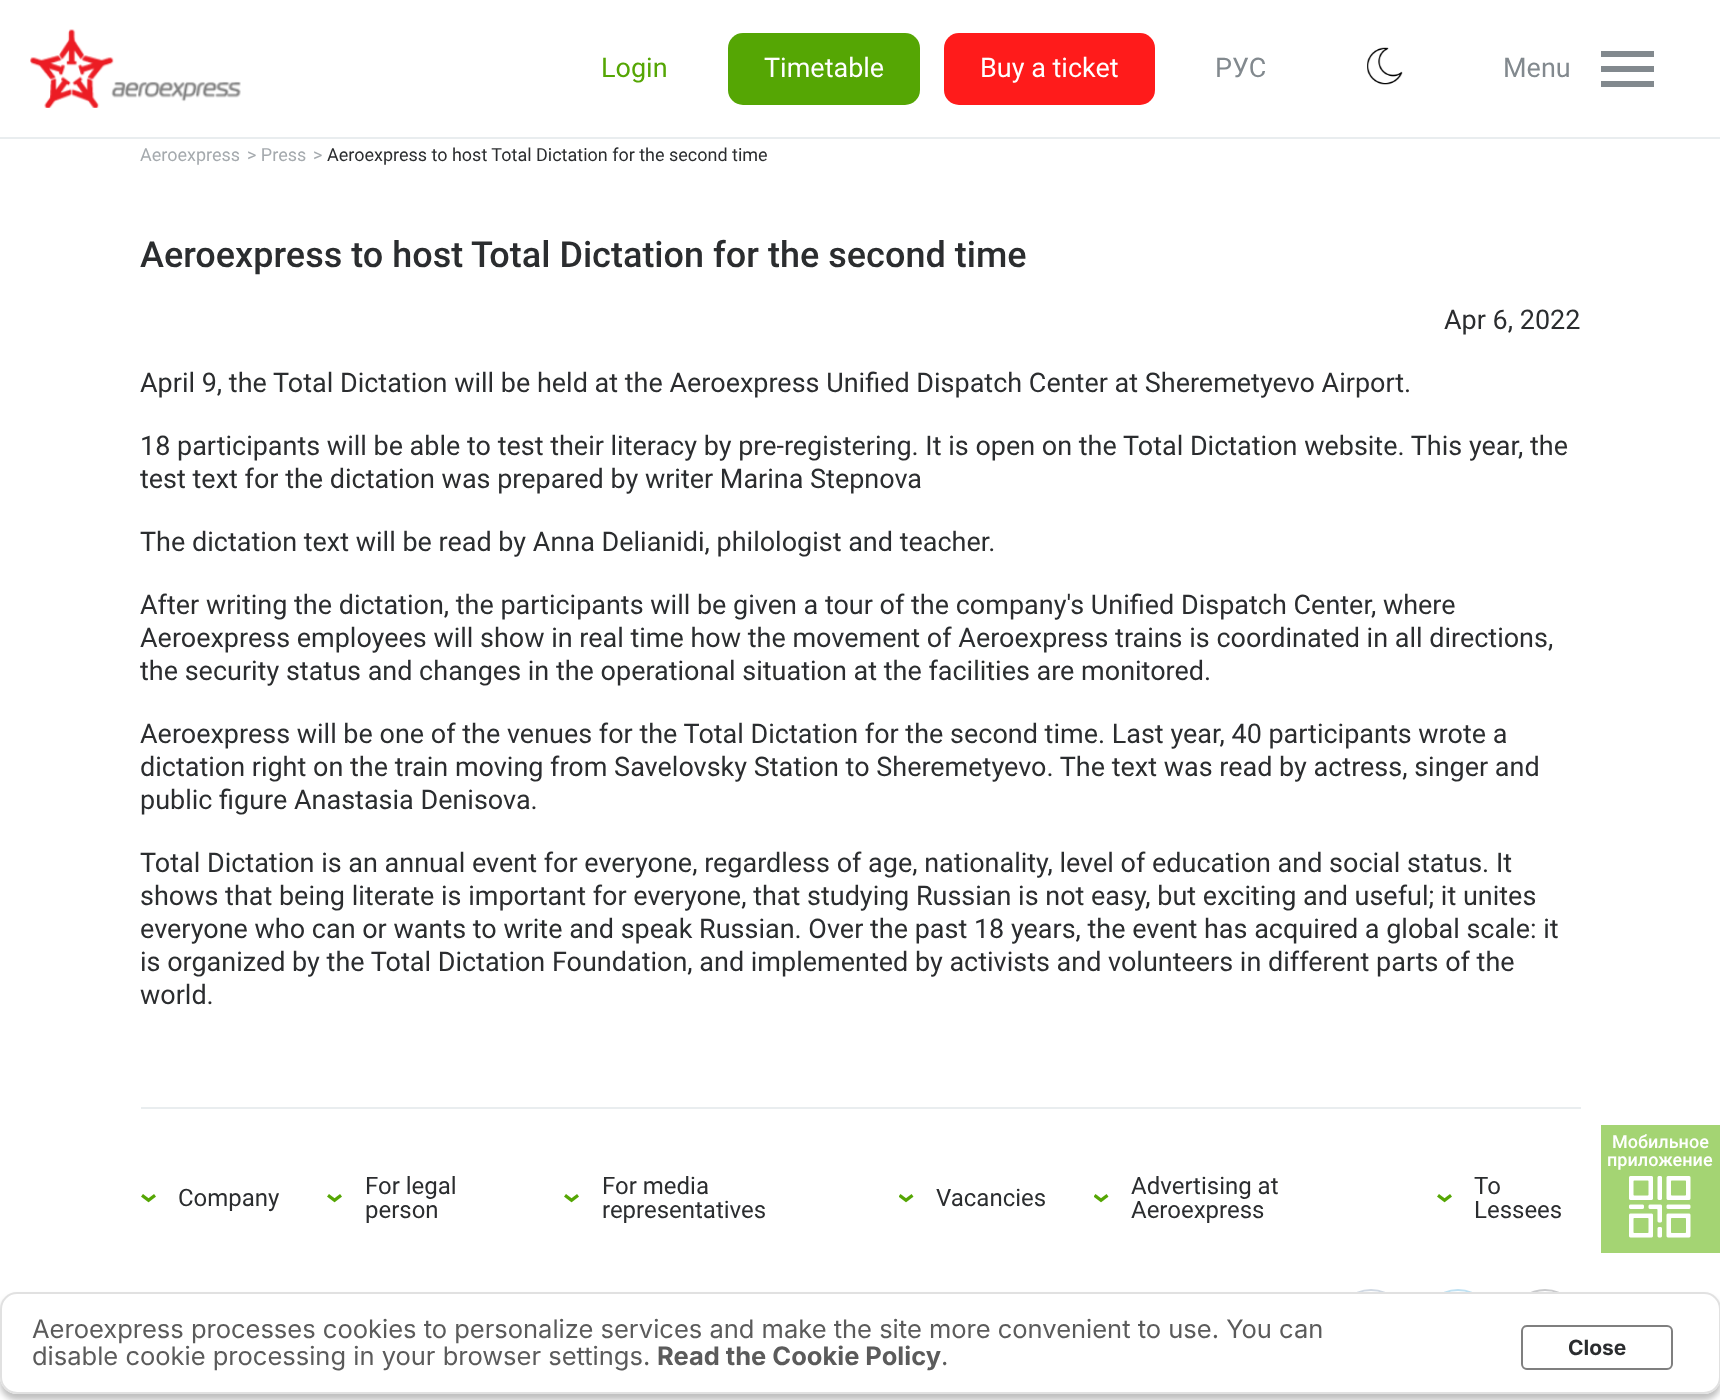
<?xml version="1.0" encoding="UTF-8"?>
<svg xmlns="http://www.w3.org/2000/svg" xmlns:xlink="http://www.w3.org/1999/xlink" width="1720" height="1400">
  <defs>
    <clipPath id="clip1"><rect x="1601" y="42" width="54" height="54" /></clipPath>
  </defs>
  <rect width="100%" height="100%" fill="#ffffff" />
  <rect y="137" width="1720" height="2" fill="#e9edef" />
  <image x="30" y="29" width="211" height="79" xlink:href="image1.png" />
  <rect x="728" y="33" width="192" height="72" rx="15" fill="#55a604" />
  <rect x="944" y="33" width="211" height="72" rx="15" fill="#ff1b1b" />
  <image x="1367" y="47" width="36" height="38" xlink:href="image2.png" />
  <g clip-path="url(#clip1)">
    <path d="M 1654 51 v 6 h -54 v -6 z m -54 21 h 54 v -6 h -54 z m 0 15 h 54 v -6 h -54 z" fill="#82898e" />
  </g>
  <rect x="1601" y="1125" width="119" height="128" fill="#a4d473" />
  <image x="1629" y="1176" width="62" height="62" xlink:href="image3.png" />
  <rect x="141" y="1107" width="1440" height="2" fill="#e9edef" />
  <image x="141" y="1194" width="15" height="9" xlink:href="image4.png" />
  <image x="327" y="1194" width="15" height="9" xlink:href="image4.png" />
  <image x="564" y="1194" width="15" height="9" xlink:href="image4.png" />
  <image x="899" y="1194" width="15" height="9" xlink:href="image5.png" />
  <image x="1094" y="1194" width="15" height="9" xlink:href="image5.png" />
  <image x="1437" y="1194" width="15" height="9" xlink:href="image4.png" />
  <circle cx="1371" cy="1325" r="35" fill="none" stroke="#d1d9e3" stroke-width="2" />
  <circle cx="1458" cy="1325" r="35" fill="none" stroke="#bfe1f2" stroke-width="2" />
  <circle cx="1545" cy="1325" r="35" fill="none" stroke="#cacbcd" stroke-width="2" />
  <rect y="1298" width="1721" height="102" rx="17" fill="#000000" fill-opacity="0.25" filter="blur(3px)" />
  <rect y="1292" width="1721" height="102" rx="17" fill="#ffffff" />
  <rect x="1" y="1293" width="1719" height="100" rx="16" fill="none" stroke="#dedede" stroke-opacity="0.9" stroke-width="2" />
  <rect x="1522" y="1326" width="150" height="43" rx="5" fill="none" stroke="#7f7f7f" stroke-width="2" />
  <text x="601" y="77" style="font-family: Roboto; font-size: 27px; fill: #55a604">Login</text>
  <text x="764" y="77" style="font-family: Roboto; font-size: 27px; fill: #ffffff">Timetable</text>
  <text x="980" y="77" style="font-family: Roboto; font-size: 27px; fill: #ffffff">Buy a ticket</text>
  <text x="1215" y="77" style="font-family: Roboto; font-size: 27px; fill: #82898e">РУС</text>
  <text x="1503" y="77" style="font-family: Roboto; font-size: 27px; fill: #82898e">Menu</text>
  <text x="140" y="161" style="font-family: Roboto; font-size: 18px; fill: #a5aaae">Aeroexpress</text>
  <text x="247" y="161" style="font-family: Roboto; font-size: 18px; fill: #a5aaae">&gt; Press</text>
  <text x="313" y="161" style="font-family: Roboto; font-size: 18px; fill: #a5aaae">&gt;</text>
  <text x="327" y="161" style="font-family: Roboto; font-size: 18px; fill: #2b2d2f">Aeroexpress to host Total Dictation for the second time</text>
  <text x="140" y="267" style="font-family: Roboto; font-size: 36px; font-weight: 500; fill: #2b2d2f">Aeroexpress to host Total Dictation for the second time</text>
  <text x="1444" y="329" style="font-family: Roboto; font-size: 27px; fill: #2b2d2f">Apr 6, 2022</text>
  <text x="140" y="392" style="font-family: Roboto; font-size: 27px; fill: #2b2d2f">April 9, the Total Dictation will be held at the Aeroexpress Unified Dispatch Center at Sheremetyevo Airport.</text>
  <text x="140" y="455" style="font-family: Roboto; font-size: 27px; fill: #2b2d2f">18 participants will be able to test their literacy by pre-registering. It is open on the Total Dictation website. This year, the</text>
  <text x="140" y="488" style="font-family: Roboto; font-size: 27px; fill: #2b2d2f">test text for the dictation was prepared by writer Marina Stepnova</text>
  <text x="140" y="551" style="font-family: Roboto; font-size: 27px; fill: #2b2d2f">The dictation text will be read by Anna Delianidi, philologist and teacher.</text>
  <text x="140" y="614" style="font-family: Roboto; font-size: 27px; fill: #2b2d2f">After writing the dictation, the participants will be given a tour of the company's Unified Dispatch Center, where</text>
  <text x="140" y="647" style="font-family: Roboto; font-size: 27px; fill: #2b2d2f">Aeroexpress employees will show in real time how the movement of Aeroexpress trains is coordinated in all directions,</text>
  <text x="140" y="680" style="font-family: Roboto; font-size: 27px; fill: #2b2d2f">the security status and changes in the operational situation at the facilities are monitored.</text>
  <text x="140" y="743" style="font-family: Roboto; font-size: 27px; fill: #2b2d2f">Aeroexpress will be one of the venues for the Total Dictation for the second time. Last year, 40 participants wrote a</text>
  <text x="140" y="776" style="font-family: Roboto; font-size: 27px; fill: #2b2d2f">dictation right on the train moving from Savelovsky Station to Sheremetyevo. The text was read by actress, singer and</text>
  <text x="140" y="809" style="font-family: Roboto; font-size: 27px; fill: #2b2d2f">public figure Anastasia Denisova.</text>
  <text x="140" y="872" style="font-family: Roboto; font-size: 27px; fill: #2b2d2f">Total Dictation is an annual event for everyone, regardless of age, nationality, level of education and social status. It</text>
  <text x="140" y="905" style="font-family: Roboto; font-size: 27px; fill: #2b2d2f">shows that being literate is important for everyone, that studying Russian is not easy, but exciting and useful; it unites</text>
  <text x="140" y="938" style="font-family: Roboto; font-size: 27px; fill: #2b2d2f">everyone who can or wants to write and speak Russian. Over the past 18 years, the event has acquired a global scale: it</text>
  <text x="140" y="971" style="font-family: Roboto; font-size: 27px; fill: #2b2d2f">is organized by the Total Dictation Foundation, and implemented by activists and volunteers in different parts of the</text>
  <text x="140" y="1004" style="font-family: Roboto; font-size: 27px; fill: #2b2d2f">world.</text>
  <text x="1612" y="1148" style="font-family: Roboto; font-size: 18px; font-weight: 500; fill: #ffffff">Мобильное</text>
  <text x="1607" y="1166" style="font-family: Roboto; font-size: 18px; font-weight: 500; fill: #ffffff">приложение</text>
  <text x="178" y="1206" style="font-family: Roboto; font-size: 24px; fill: #2b2d2f">Company</text>
  <text x="365" y="1194" style="font-family: Roboto; font-size: 24px; fill: #2b2d2f">For legal</text>
  <text x="365" y="1218" style="font-family: Roboto; font-size: 24px; fill: #2b2d2f">person</text>
  <text x="602" y="1194" style="font-family: Roboto; font-size: 24px; fill: #2b2d2f">For media</text>
  <text x="602" y="1218" style="font-family: Roboto; font-size: 24px; fill: #2b2d2f">representatives</text>
  <text x="936" y="1206" style="font-family: Roboto; font-size: 24px; fill: #2b2d2f">Vacancies</text>
  <text x="1131" y="1194" style="font-family: Roboto; font-size: 24px; fill: #2b2d2f">Advertising at</text>
  <text x="1131" y="1218" style="font-family: Roboto; font-size: 24px; fill: #2b2d2f">Aeroexpress</text>
  <text x="1474" y="1194" style="font-family: Roboto; font-size: 24px; fill: #2b2d2f">To</text>
  <text x="1474" y="1218" style="font-family: Roboto; font-size: 24px; fill: #2b2d2f">Lessees</text>
  <text x="32" y="1338" style="font-family: Inter; font-size: 25.5px; fill: #5b5b5b">Aeroexpress processes cookies to personalize services and make the site more convenient to use. You can</text>
  <text x="32" y="1365" style="font-family: Inter; font-size: 25.5px; fill: #5b5b5b">disable cookie processing in your browser settings.</text>
  <text x="657" y="1365" style="font-family: Inter; font-size: 25.5px; font-weight: bold; fill: #5b5b5b">Read the Cookie Policy</text>
  <text x="941" y="1365" style="font-family: Inter; font-size: 25.5px; fill: #5b5b5b">.</text>
  <text x="1568" y="1355" style="font-family: Inter; font-size: 21px; font-weight: bold; fill: #2b2d2f">Close</text>
</svg>
